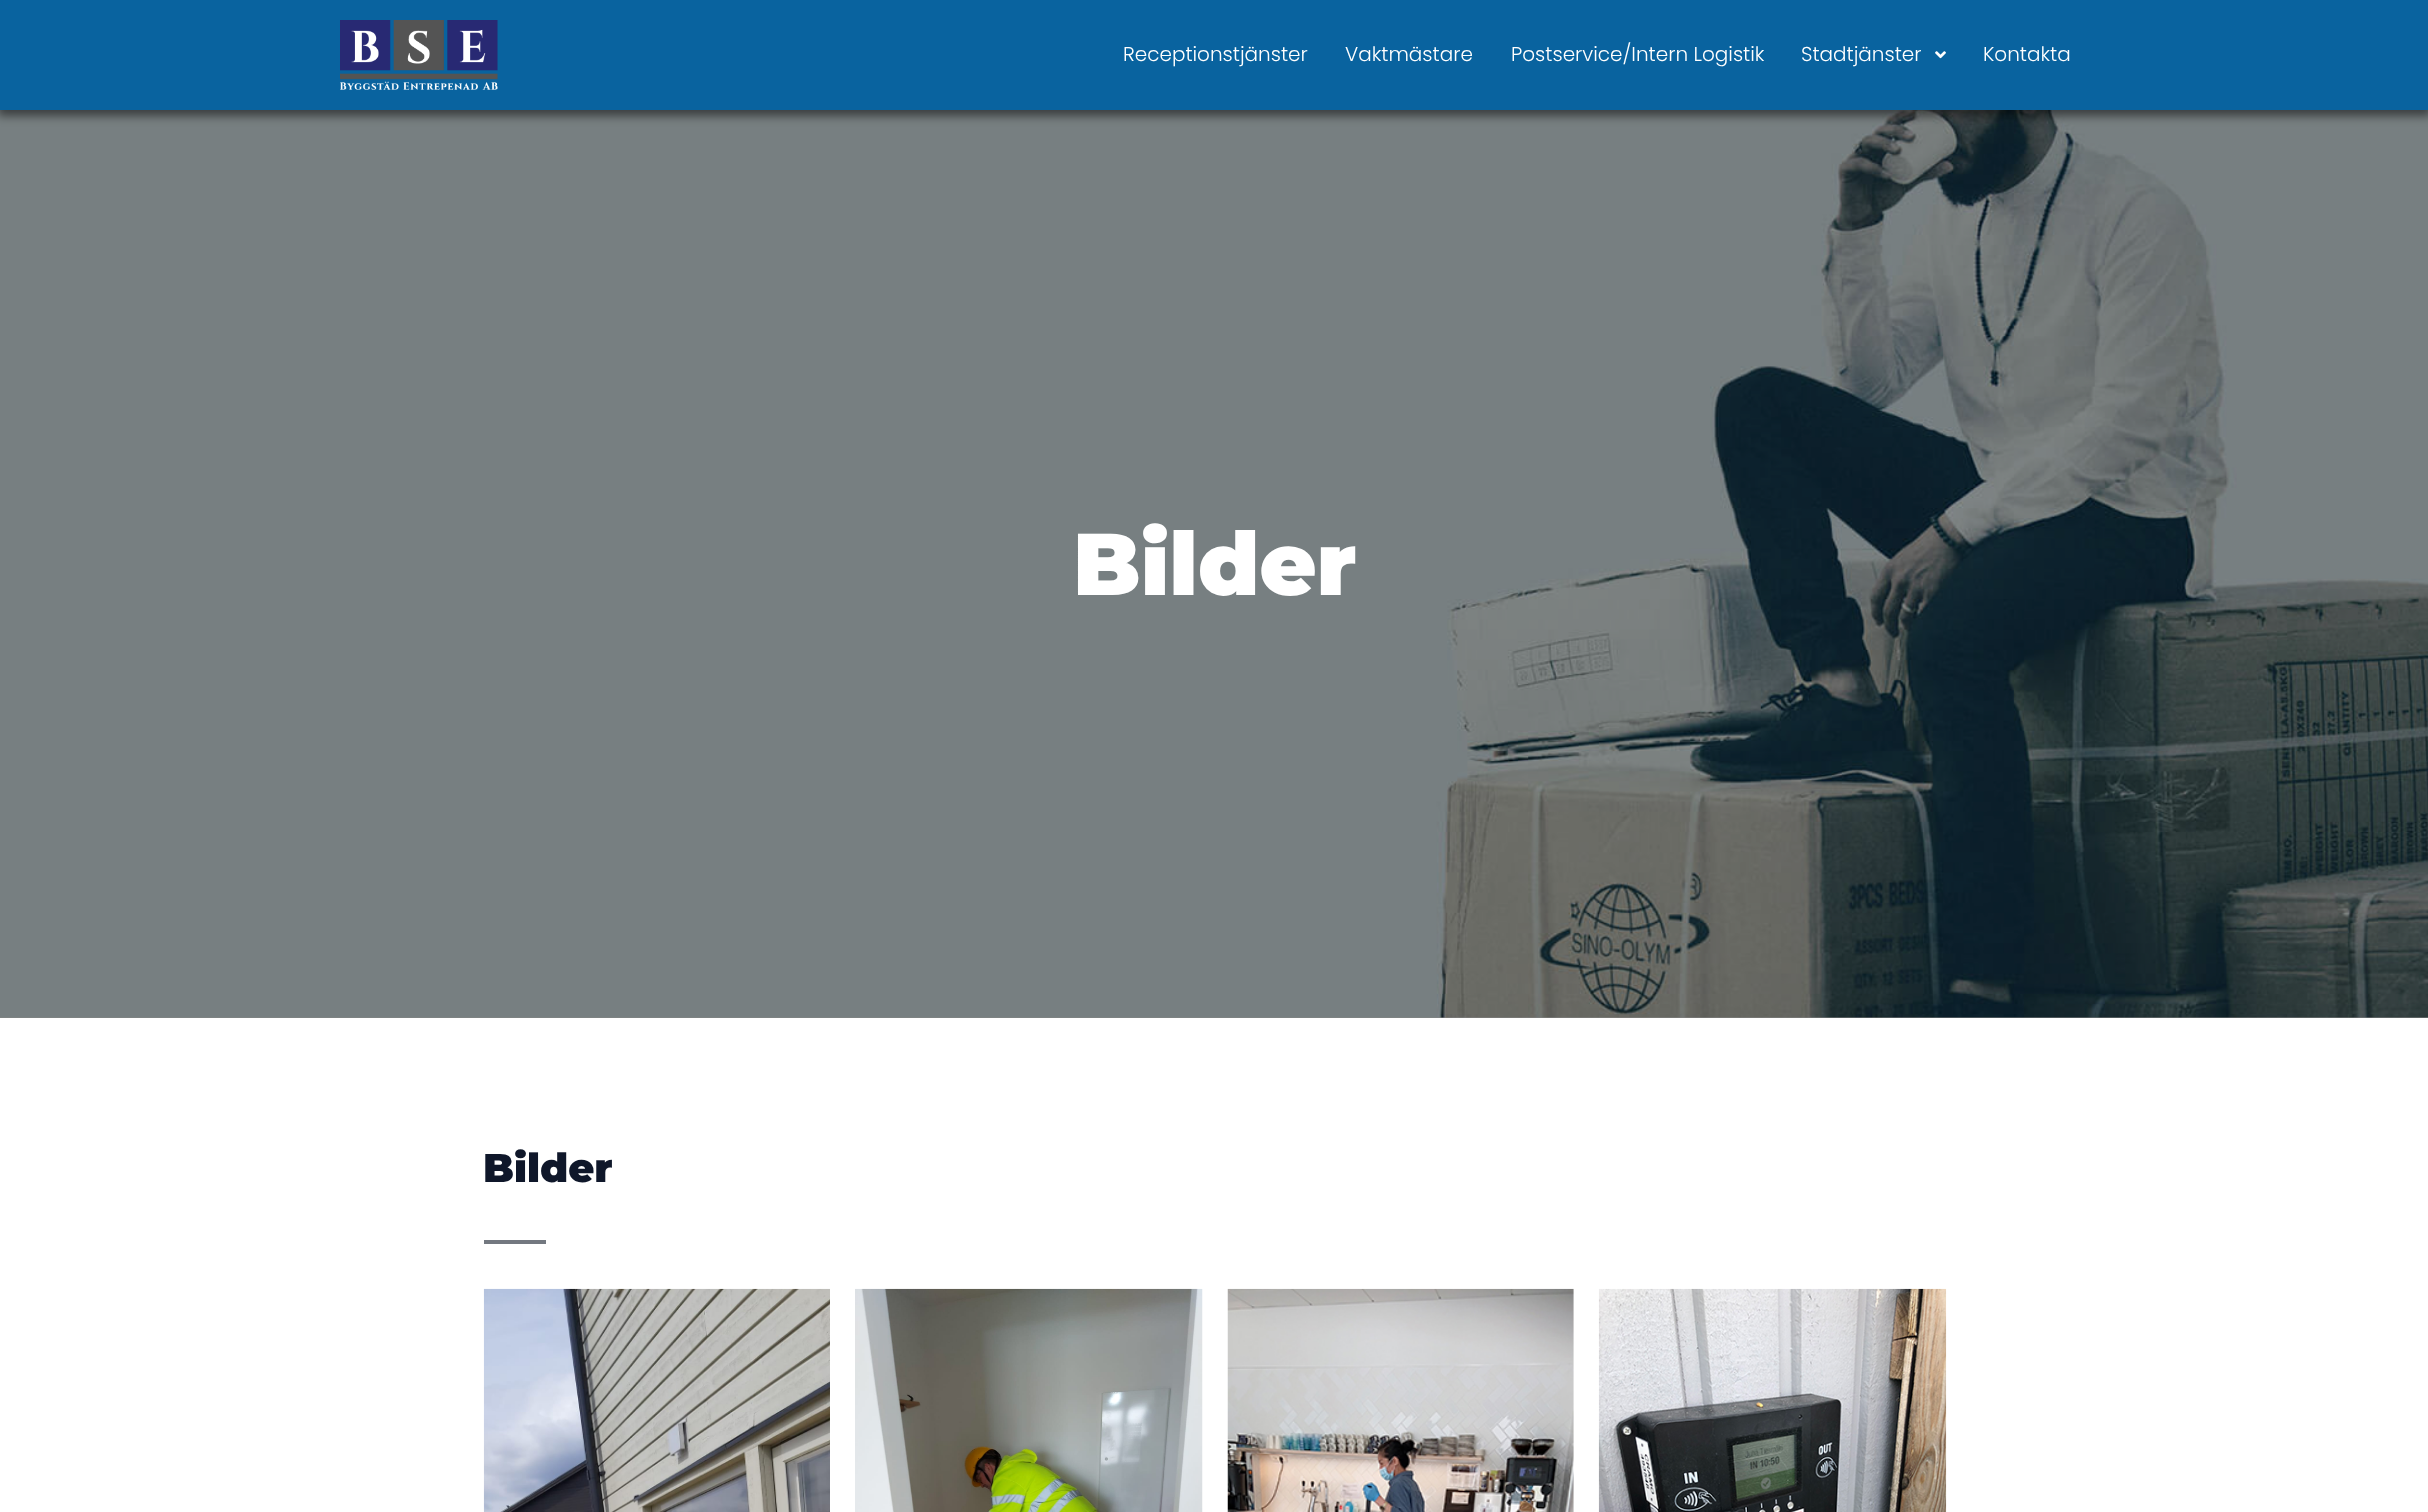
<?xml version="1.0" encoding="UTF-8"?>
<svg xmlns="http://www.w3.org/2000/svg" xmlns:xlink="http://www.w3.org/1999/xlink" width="2428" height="1512">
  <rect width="100%" height="100%" fill="#878787" />
  <image x="0" y="110" width="2428" height="908" xlink:href="image3.png" />
  <rect x="-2" y="1" width="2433" height="115" fill="#000000" fill-opacity="0.5" filter="blur(5px)" />
  <rect width="2428" height="110" fill="#09639f" />
  <image x="340" y="20" width="158" height="70" xlink:href="image1.png" />
  <image x="1935" y="51" width="11" height="8" xlink:href="image2.png" />
  <rect y="1018" width="2428" height="494" fill="#ffffff" />
  <rect x="484" y="1240" width="62" height="4" fill="#737880" />
  <image x="483" y="1288" width="347" height="224" xlink:href="image4.png" />
  <image x="855" y="1288" width="348" height="224" xlink:href="image5.png" />
  <image x="1227" y="1288" width="347" height="224" xlink:href="image6.png" />
  <image x="1598" y="1288" width="349" height="224" xlink:href="image7.png" />
  <text x="1123" y="61" style="font-family: Poppins; font-size: 20px; font-weight: 300; fill: #ffffff">Receptionstjänster</text>
  <text x="1345" y="61" style="font-family: Poppins; font-size: 20px; font-weight: 300; fill: #ffffff">Vaktmästare</text>
  <text x="1511" y="61" style="font-family: Poppins; font-size: 20px; font-weight: 300; fill: #ffffff">Postservice/Intern Logistik</text>
  <text x="1801" y="61" style="font-family: Poppins; font-size: 20px; font-weight: 300; fill: #ffffff">Stadtjänster</text>
  <text x="1983" y="61" style="font-family: Poppins; font-size: 20px; font-weight: 300; fill: #ffffff">Kontakta</text>
  <text x="1073" y="595" style="font-family: Montserrat; font-size: 87.5px; font-weight: 900; fill: #ffffff">Bilder</text>
  <text x="483" y="1182" style="font-family: Montserrat; font-size: 40px; font-weight: 900; fill: #0f172a">Bilder</text>
</svg>
